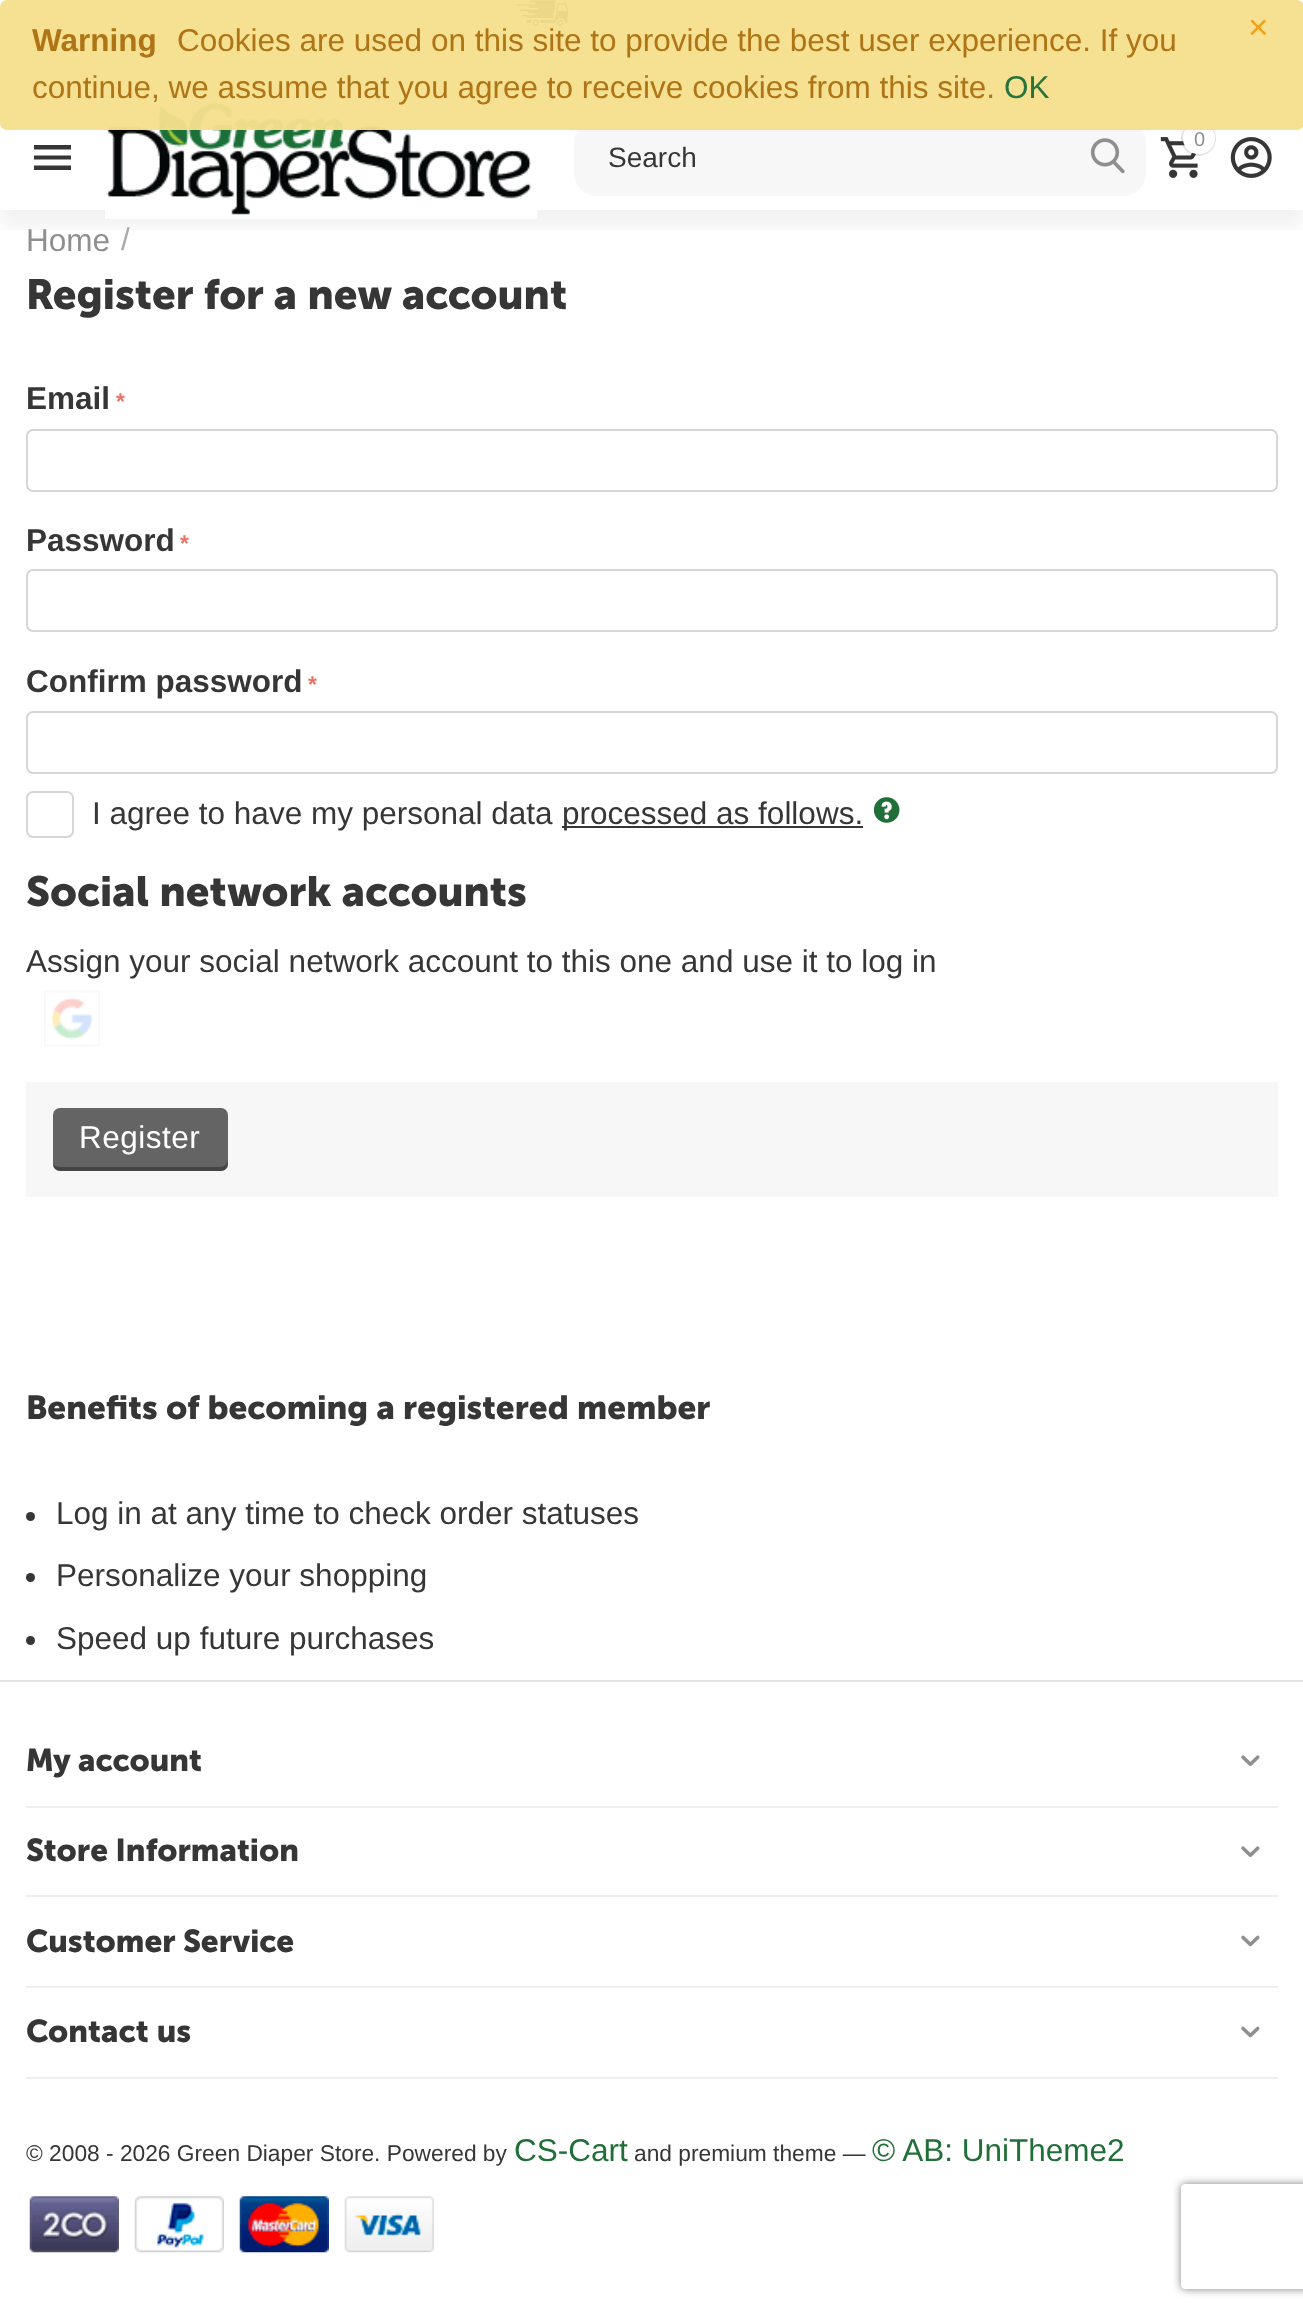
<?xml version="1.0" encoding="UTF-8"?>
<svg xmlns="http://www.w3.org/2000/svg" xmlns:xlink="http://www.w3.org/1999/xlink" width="1303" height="2312">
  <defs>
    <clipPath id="clip1"><rect x="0" y="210" width="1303" height="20" /></clipPath>
    <clipPath id="clip2"><path d="M 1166 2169 h 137 v 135 h -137 z m 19 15 h 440 c 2 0 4 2 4 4 v 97 c 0 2 -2 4 -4 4 h -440 c -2 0 -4 -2 -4 -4 v -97 c 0 -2 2 -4 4 -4 z" clip-rule="evenodd" /></clipPath>
  </defs>
  <rect width="100%" height="100%" fill="#ffffff" />
  <rect y="103" width="1303" height="2" fill="#efefef" />
  <image x="516" y="0" width="53" height="27" xlink:href="image1.png" />
  <g clip-path="url(#clip1)">
    <rect y="123" width="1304" height="105" fill="#000000" fill-opacity="0.05" filter="blur(9px)" />
  </g>
  <image x="105" y="102" width="433" height="117" xlink:href="image2.png" />
  <image x="1160" y="137" width="38" height="41" xlink:href="image3.png" />
  <circle cx="1198.5" cy="138.5" r="16.5" fill="none" stroke="#363636" stroke-opacity="0.15" stroke-width="2" />
  <rect x="1183" y="123" width="32" height="31" rx="15.5" fill="#ffffff" />
  <rect x="574" y="119" width="572" height="77" rx="23" fill="#f7f7f7" />
  <rect width="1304" height="130" rx="7" fill="#f5e08c" fill-opacity="0.96" />
  <path d="M 34 170 h 37 v -4.5 h -37 z m 0 -10.5 h 37 v -4 h -37 z m 0 -14.5 v 4.5 h 37 v -4.5 z" fill="#363636" />
  <image x="1230" y="137" width="42" height="41" xlink:href="image4.png" />
  <image x="1090" y="138" width="35" height="36" xlink:href="image5.png" />
  <rect x="27" y="430" width="1250" height="61" rx="6" fill="none" stroke="#d6d6d6" stroke-width="2" />
  <rect x="27" y="570" width="1250" height="61" rx="6" fill="none" stroke="#d6d6d6" stroke-width="2" />
  <rect x="27" y="712" width="1250" height="61" rx="6" fill="none" stroke="#d6d6d6" stroke-width="2" />
  <rect x="27" y="792" width="46" height="45" rx="6" fill="none" stroke="#d6d6d6" stroke-width="2" />
  <rect x="562" y="826" width="301" height="2" fill="#363636" />
  <image x="873" y="797" width="27" height="26" xlink:href="image6.png" />
  <image x="44" y="990" width="56" height="57" xlink:href="image7.png" />
  <rect x="26" y="1082" width="1252" height="115" fill="#f7f7f7" />
  <rect x="53" y="1108" width="175" height="63" rx="7" fill="#646464" />
  <path d="M 53 1163 v 1 c 0 4 3 7 7 7 h 161 c 4 0 7 -3 7 -7 v -4 c 0 4 -4 7 -8 7 h -160 c -3 0 -6 -1 -7 -4 z" fill="#000000" fill-opacity="0.3" />
  <circle cx="30.5" cy="1516.5" r="4.5" fill="#363636" />
  <circle cx="30.5" cy="1577.5" r="4.5" fill="#363636" />
  <circle cx="30.5" cy="1640.5" r="4.5" fill="#363636" />
  <rect y="1680" width="1303" height="2" fill="#e2e2e2" />
  <rect x="26" y="1806" width="1252" height="2" fill="#efefef" />
  <image x="1241" y="1755" width="19" height="11" xlink:href="image8.png" />
  <rect x="26" y="1895" width="1252" height="2" fill="#efefef" />
  <image x="1241" y="1846" width="19" height="11" xlink:href="image8.png" />
  <rect x="26" y="1986" width="1252" height="2" fill="#efefef" />
  <image x="1241" y="1935" width="19" height="12" xlink:href="image9.png" />
  <rect x="26" y="2077" width="1252" height="2" fill="#efefef" />
  <image x="1241" y="2026" width="19" height="12" xlink:href="image9.png" />
  <image x="29" y="2196" width="90" height="57" xlink:href="image10.png" />
  <image x="134" y="2196" width="90" height="57" xlink:href="image11.png" />
  <image x="239" y="2196" width="90" height="57" xlink:href="image12.png" />
  <image x="344" y="2196" width="90" height="57" xlink:href="image13.png" />
  <g clip-path="url(#clip2)">
    <rect x="1181" y="2184" width="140" height="105" rx="4" fill="#808080" filter="blur(4.5px)" />
  </g>
  <text x="32" y="51" style="font-family: Liberation Sans; font-size: 31.5px; font-weight: bold; fill: #af7415">Warning</text>
  <text x="177" y="51" style="font-family: Liberation Sans; font-size: 31.5px; fill: #af7415">Cookies are used on this site to provide the best user experience. If you</text>
  <text x="1248" y="39" style="font-family: Liberation Sans; font-size: 35px; fill: #f3a01b">×</text>
  <text x="32" y="98" style="font-family: Liberation Sans; font-size: 31.5px; fill: #af7415">continue, we assume that you agree to receive cookies from this site.</text>
  <text x="1004" y="98" style="font-family: Liberation Sans; font-size: 31.5px; fill: #29743c">OK</text>
  <text x="1194" y="146" style="font-family: Liberation Sans; font-size: 20px; letter-spacing: -2px; fill: #8f8f8f">0</text>
  <text x="608" y="167" style="font-family: Liberation Sans; font-size: 28px; fill: #363636">Search</text>
  <text x="26" y="251" style="font-family: Liberation Sans; font-size: 31.5px; fill: #8f8f8f">Home</text>
  <text x="121" y="250" style="font-family: Liberation Sans; font-size: 31.5px; fill: #a9a9a9">/</text>
  <text x="26" y="309" style="font-family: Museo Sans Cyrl; font-size: 42px; font-weight: bold; fill: #363636">Register for a new account</text>
  <text x="26" y="409" style="font-family: Liberation Sans; font-size: 31.5px; font-weight: bold; fill: #363636">Email</text>
  <text x="116" y="409" style="font-family: Liberation Sans; font-size: 22.75px; font-weight: bold; fill: #ea7162">*</text>
  <text x="26" y="551" style="font-family: Liberation Sans; font-size: 31.5px; font-weight: bold; fill: #363636">Password</text>
  <text x="180" y="551" style="font-family: Liberation Sans; font-size: 22.75px; font-weight: bold; fill: #ea7162">*</text>
  <text x="26" y="692" style="font-family: Liberation Sans; font-size: 31.5px; font-weight: bold; fill: #363636">Confirm password</text>
  <text x="308" y="692" style="font-family: Liberation Sans; font-size: 22.75px; font-weight: bold; fill: #ea7162">*</text>
  <text x="92" y="824" style="font-family: Liberation Sans; font-size: 31.5px; fill: #363636">I agree to have my personal data</text>
  <text x="562" y="824" style="font-family: Liberation Sans; font-size: 31.5px; fill: #363636">processed as follows.</text>
  <text x="26" y="906" style="font-family: Museo Sans Cyrl; font-size: 42px; font-weight: bold; fill: #363636">Social network accounts</text>
  <text x="26" y="972" style="font-family: Liberation Sans; font-size: 31.5px; fill: #363636">Assign your social network account to this one and use it to log in</text>
  <text x="79" y="1148" style="font-family: Liberation Sans; font-size: 31.5px; letter-spacing: 0.5px; fill: #ffffff">Register</text>
  <text x="26" y="1419" style="font-family: Museo Sans Cyrl; font-size: 33.25px; font-weight: bold; fill: #363636">Benefits of becoming a registered member</text>
  <text x="56" y="1524" style="font-family: Liberation Sans; font-size: 31.5px; fill: #363636">Log in at any time to check order statuses</text>
  <text x="56" y="1586" style="font-family: Liberation Sans; font-size: 31.5px; fill: #363636">Personalize your shopping</text>
  <text x="56" y="1649" style="font-family: Liberation Sans; font-size: 31.5px; fill: #363636">Speed up future purchases</text>
  <text x="26" y="1771" style="font-family: Museo Sans Cyrl; font-size: 31.5px; font-weight: bold; fill: #363636">My account</text>
  <text x="26" y="1861" style="font-family: Museo Sans Cyrl; font-size: 31.5px; font-weight: bold; fill: #363636">Store Information</text>
  <text x="26" y="1952" style="font-family: Museo Sans Cyrl; font-size: 31.5px; font-weight: bold; fill: #363636">Customer Service</text>
  <text x="26" y="2042" style="font-family: Museo Sans Cyrl; font-size: 31.5px; font-weight: bold; fill: #363636">Contact us</text>
  <text x="26" y="2161" style="font-family: Liberation Sans; font-size: 22.75px; fill: #363636">© 2008 - 2026 Green Diaper Store. Powered by</text>
  <text x="514" y="2161" style="font-family: Liberation Sans; font-size: 31.5px; fill: #216f38">CS-Cart</text>
  <text x="634" y="2161" style="font-family: Liberation Sans; font-size: 22.75px; fill: #363636">and premium theme —</text>
  <text x="872" y="2161" style="font-family: Liberation Sans; font-size: 31.5px; fill: #216f38">© AB: UniTheme2</text>
</svg>
